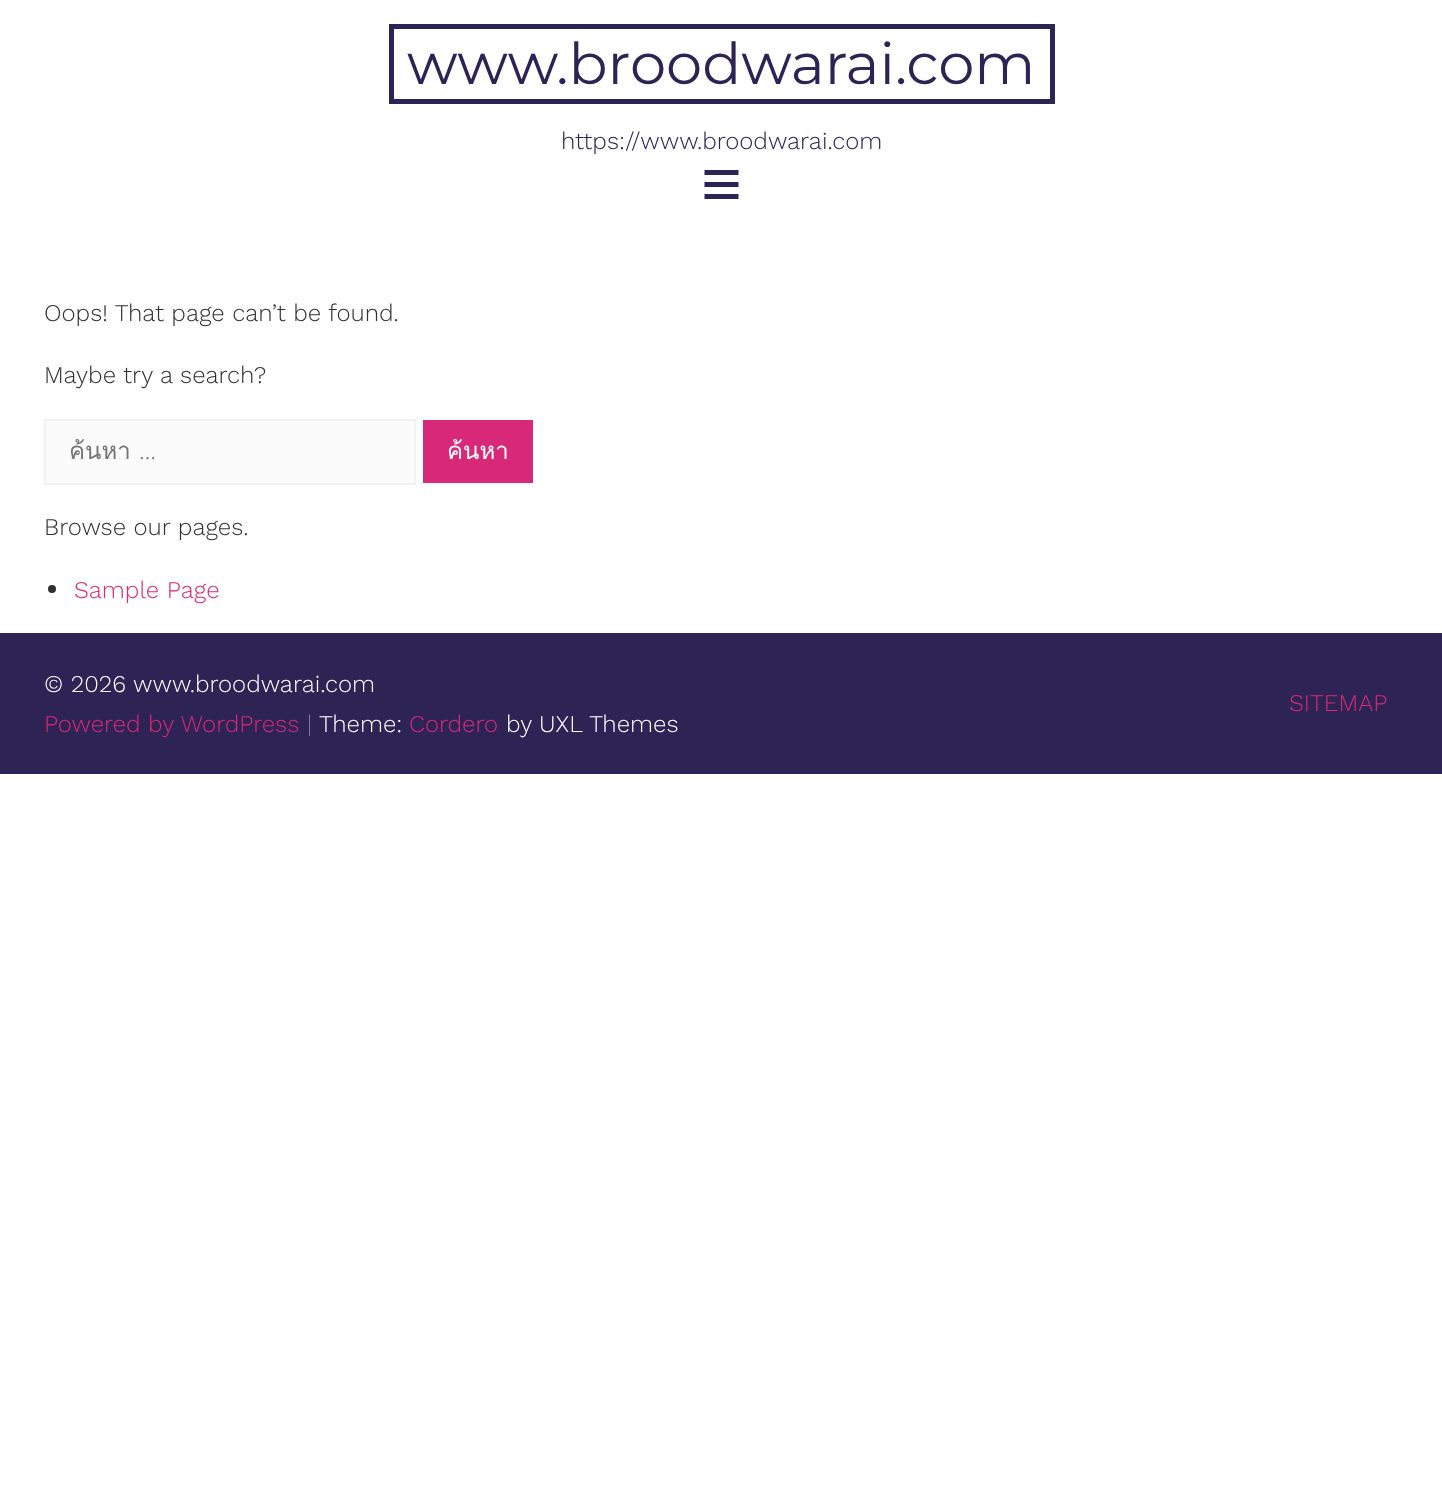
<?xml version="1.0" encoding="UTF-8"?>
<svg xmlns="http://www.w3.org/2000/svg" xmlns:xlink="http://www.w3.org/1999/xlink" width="1442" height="1499">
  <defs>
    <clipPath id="clip1"><rect x="69" y="432" width="315" height="38" /></clipPath>
  </defs>
  <rect width="100%" height="100%" fill="#ffffff" />
  <rect x="391.5" y="26.5" width="661" height="75" fill="none" stroke="#2d2354" stroke-width="5" />
  <path d="M 704.5 187 h 34 v -5 h -34 z m 0 12 h 34 v -5 h -34 z m 0 -29 v 5 h 34 v -5 z" fill="#2d2354" />
  <rect x="45" y="420" width="370" height="64" fill="#fbfbfb" stroke="#f1f1f1" stroke-width="2" />
  <rect x="423" y="420" width="110" height="63" fill="#d82978" />
  <circle cx="52" cy="589" r="4" fill="#313131" />
  <rect y="633" width="1442" height="141" fill="#2d2354" />
  <text x="407" y="84" style="font-family: Montserrat; font-size: 57.6px; fill: #2d2354">www.broodwarai.com</text>
  <text x="561" y="149" style="font-family: Work Sans; font-size: 24px; font-weight: 300; fill: #2d2354">https://www.broodwarai.com</text>
  <text x="44" y="321" style="font-family: Work Sans; font-size: 24px; font-weight: 300; fill: #313131">Oops! That page can’t be found.</text>
  <text x="44" y="383" style="font-family: Work Sans; font-size: 24px; font-weight: 300; fill: #313131">Maybe try a search?</text>
  <g clip-path="url(#clip1)">
    <text x="69" y="459" style="font-family: Loma; font-size: 24px; fill: #757575">ค้นหา</text>
  </g>
  <text x="139" y="459" style="font-family: Work Sans; font-size: 24px; font-weight: 300; fill: #757575">…</text>
  <text x="447" y="459" style="font-family: Loma; font-size: 24px; fill: #ffffff">ค้นหา</text>
  <text x="44" y="535" style="font-family: Work Sans; font-size: 24px; font-weight: 300; fill: #313131">Browse our pages.</text>
  <text x="74" y="598" style="font-family: Work Sans; font-size: 24px; font-weight: 300; fill: #d82978">Sample Page</text>
  <text x="44" y="692" style="font-family: Work Sans; font-size: 24px; font-weight: 300; fill: #ffffff">© 2026 www.broodwarai.com</text>
  <text x="44" y="732" style="font-family: Work Sans; font-size: 24px; font-weight: 300; fill: #d82978">Powered by WordPress</text>
  <text x="307" y="732" style="font-family: Work Sans; font-size: 24px; font-weight: 300; fill: #817b98">|</text>
  <text x="319" y="732" style="font-family: Work Sans; font-size: 24px; font-weight: 300; fill: #ffffff">Theme:</text>
  <text x="409" y="732" style="font-family: Work Sans; font-size: 24px; font-weight: 300; fill: #d82978">Cordero</text>
  <text x="506" y="732" style="font-family: Work Sans; font-size: 24px; font-weight: 300; fill: #ffffff">by UXL Themes</text>
  <text x="1289" y="711" style="font-family: Work Sans; font-size: 24px; font-weight: 300; fill: #d82978">SITEMAP</text>
</svg>
